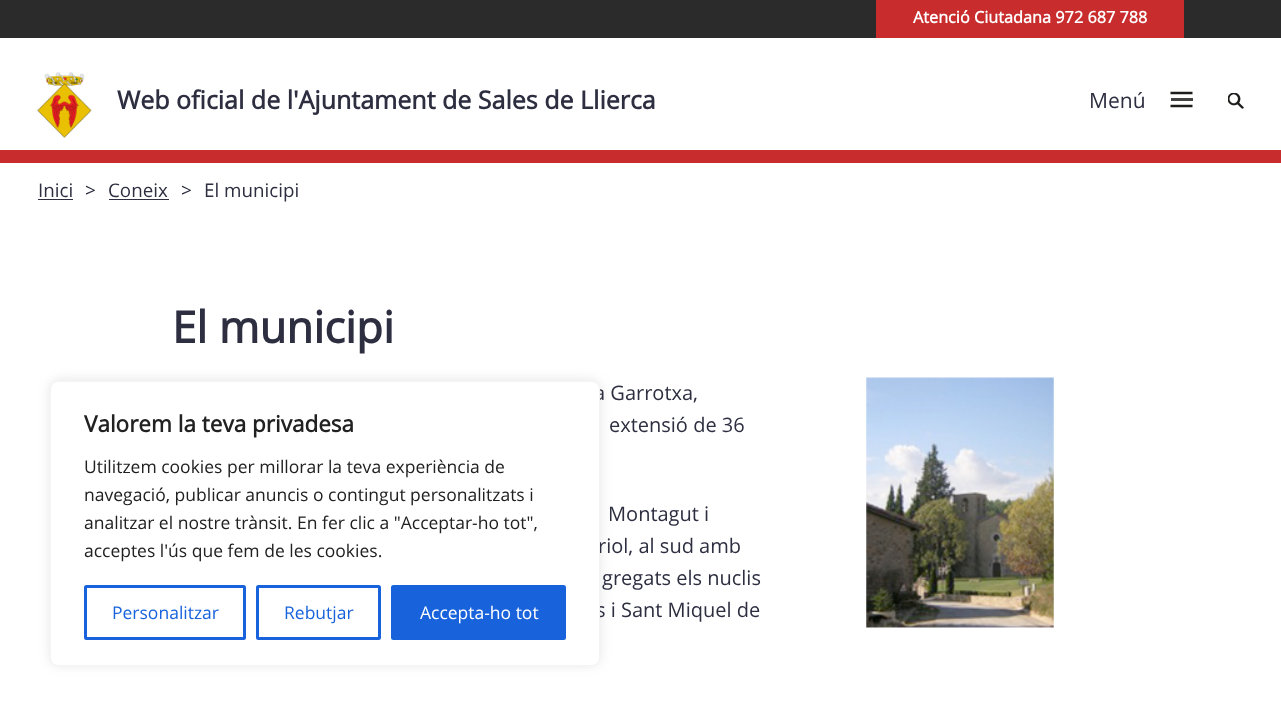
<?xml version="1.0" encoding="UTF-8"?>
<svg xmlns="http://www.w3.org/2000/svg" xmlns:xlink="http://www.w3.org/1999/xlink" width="1281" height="716">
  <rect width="100%" height="100%" fill="#ffffff" />
  <rect y="150" width="1281" height="13" fill="#c92c2c" />
  <rect width="1281" height="38" fill="#2b2b2b" />
  <rect x="876" width="308" height="38" fill="#c92c2c" />
  <image x="37" y="72" width="55" height="66" xlink:href="image1.png" />
  <path d="M 1170.5 93 h 22" fill="none" stroke="#1d1d1b" stroke-width="2.5" />
  <rect x="1171" y="98" width="22" height="3" fill="#434341" />
  <path d="M 1170.5 106 h 22" fill="none" stroke="#1d1d1b" stroke-width="2.5" />
  <image x="1228" y="93" width="16" height="16" xlink:href="image2.png" />
  <rect x="38" y="199" width="35" height="1" fill="#2d2e40" />
  <rect x="109" y="199" width="60" height="1" fill="#2d2e40" />
  <image x="866" y="377" width="188" height="251" xlink:href="image3.png" />
  <rect x="50" y="380" width="550" height="285" rx="8" fill="#acabab" fill-opacity="0.3" filter="blur(6px)" />
  <text x="913" y="23" style="font-family: Open Sans; font-size: 16.25px; font-weight: bold; fill: #ffffff">Atenció Ciutadana 972 687 788</text>
  <text x="117" y="109" style="font-family: Open Sans; font-size: 25px; font-weight: bold; fill: #2d2e40">Web oficial de l'Ajuntament de Sales de Llierca</text>
  <text x="1089" y="108" style="font-family: Open Sans; font-size: 21px; fill: #2d2e40">Menú</text>
  <text x="38" y="197" style="font-family: Open Sans; font-size: 18.75px; fill: #2d2e40">Inici</text>
  <text x="85" y="197" style="font-family: Open Sans; font-size: 19px; fill: #2d2e40">&gt;</text>
  <text x="108" y="197" style="font-family: Open Sans; font-size: 18.75px; fill: #2d2e40">Coneix</text>
  <text x="181" y="197" style="font-family: Open Sans; font-size: 19px; fill: #2d2e40">&gt;</text>
  <text x="204" y="197" style="font-family: Open Sans; font-size: 18.75px; fill: #2d2e40">El municipi</text>
  <text x="172" y="343" style="font-family: Open Sans; font-size: 43.75px; font-weight: bold; fill: #2d2e40">El municipi</text>
  <text x="594" y="400" style="font-family: Open Sans; font-size: 20px; fill: #2d2e40">a Garrotxa,</text>
  <text x="609" y="432" style="font-family: Open Sans; font-size: 20px; fill: #2d2e40">extensió de 36</text>
  <text x="608" y="521" style="font-family: Open Sans; font-size: 20px; fill: #2d2e40">Montagut i</text>
  <text x="598" y="553" style="font-family: Open Sans; font-size: 20px; fill: #2d2e40">riol, al sud amb</text>
  <text x="602" y="585" style="font-family: Open Sans; font-size: 20px; fill: #2d2e40">gregats els nuclis</text>
  <text x="596" y="617" style="font-family: Open Sans; font-size: 20px; fill: #2d2e40">s i Sant Miquel de</text>
  <rect x="50.5" y="381.5" width="549" height="284" rx="7.5" fill="#ffffff" stroke="#f4f4f4" />
  <text x="84" y="432" style="font-family: Open Sans; font-size: 22.5px; font-weight: bold; fill: #212121">Valorem la teva privadesa</text>
  <text x="84" y="473" style="font-family: Open Sans; font-size: 17.5px; fill: #212121">Utilitzem cookies per millorar la teva experiència de</text>
  <text x="84" y="501" style="font-family: Open Sans; font-size: 17.5px; fill: #212121">navegació, publicar anuncis o contingut personalitzats i</text>
  <text x="84" y="529" style="font-family: Open Sans; font-size: 17.5px; fill: #212121">analitzar el nostre trànsit. En fer clic a "Acceptar-ho tot",</text>
  <text x="84" y="557" style="font-family: Open Sans; font-size: 17.5px; fill: #212121">acceptes l'ús que fem de les cookies.</text>
  <rect x="85.5" y="586.5" width="159" height="52" rx="1" fill="none" stroke="#1863dc" stroke-width="3" />
  <text x="112" y="619" style="font-family: Open Sans; font-size: 17.5px; fill: #1863dc">Personalitzar</text>
  <rect x="257.5" y="586.5" width="122" height="52" rx="1" fill="none" stroke="#1863dc" stroke-width="3" />
  <text x="284" y="619" style="font-family: Open Sans; font-size: 17.5px; fill: #1863dc">Rebutjar</text>
  <rect x="392.5" y="586.5" width="172" height="52" rx="1" fill="#1863dc" stroke="#1863dc" stroke-width="3" />
  <text x="420" y="619" style="font-family: Open Sans; font-size: 17.5px; fill: #ffffff">Accepta-ho tot</text>
</svg>
